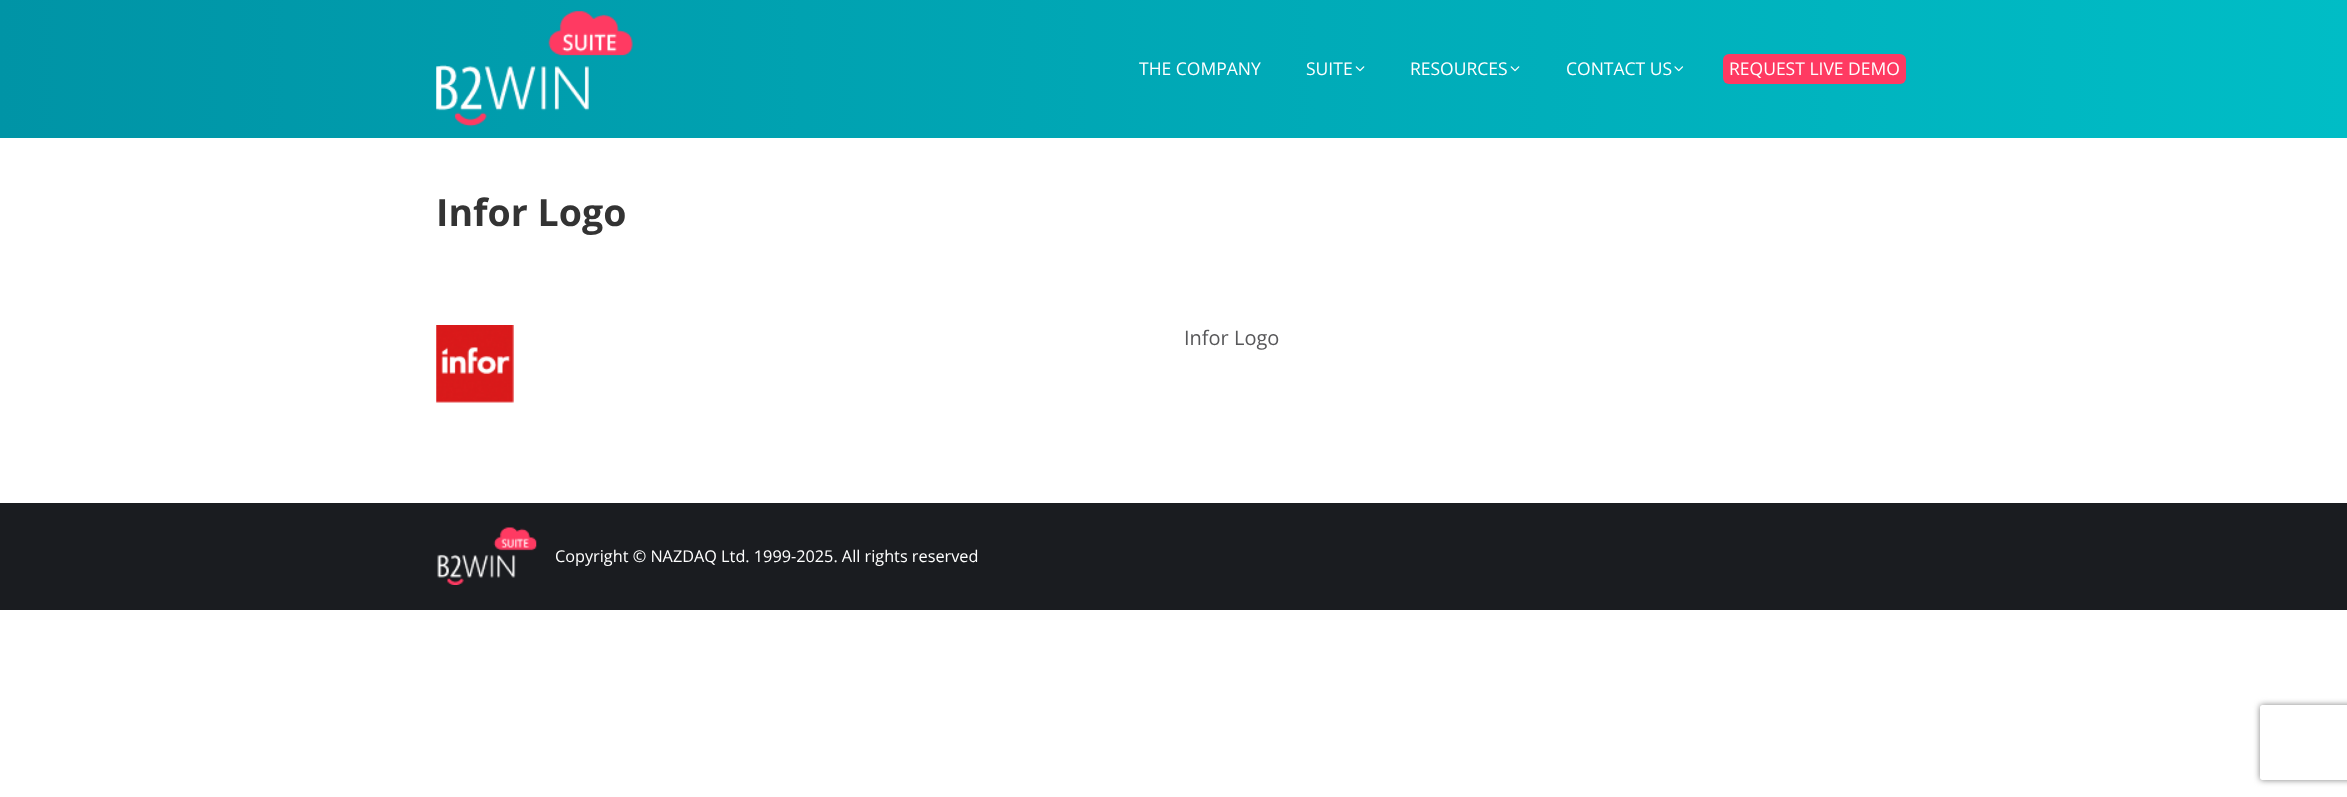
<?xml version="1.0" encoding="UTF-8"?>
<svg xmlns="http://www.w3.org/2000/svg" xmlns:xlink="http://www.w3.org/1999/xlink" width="2347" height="797">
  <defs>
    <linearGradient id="g1" gradientUnits="userSpaceOnUse" x1="0" y1="69" x2="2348" y2="69"><stop offset="0" stop-color="#0094a6" /><stop offset="1" stop-color="#00bdc6" /></linearGradient>
    <clipPath id="clip1"><path d="M 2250 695 h 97 v 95 h -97 z m 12.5 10 h 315 c 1.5 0 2.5 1 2.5 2.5 v 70 c 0 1.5 -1 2.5 -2.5 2.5 h -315 c -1.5 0 -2.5 -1 -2.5 -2.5 v -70 c 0 -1.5 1 -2.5 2.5 -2.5 z" clip-rule="evenodd" /></clipPath>
  </defs>
  <rect width="100%" height="100%" fill="#ffffff" />
  <rect width="2347" height="138" fill="url(#g1)" />
  <image x="436" y="11" width="197" height="116" xlink:href="image1.png" />
  <image x="1355" y="66" width="10" height="6" xlink:href="image2.png" />
  <image x="1510" y="66" width="10" height="6" xlink:href="image3.png" />
  <image x="1674" y="66" width="10" height="6" xlink:href="image4.png" />
  <rect x="1723" y="54" width="183" height="30" rx="6" fill="#ff3a62" />
  <image x="436" y="325" width="78" height="78" xlink:href="image5.png" />
  <rect y="503" width="2347" height="107" fill="#1a1c20" />
  <image x="437" y="527" width="100" height="58" xlink:href="image6.png" />
  <g clip-path="url(#clip1)">
    <rect x="2260" y="705" width="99" height="75" rx="2.5" fill="#808080" filter="blur(3px)" />
  </g>
  <text x="1139" y="75" style="font-family: Open Sans; font-size: 17.5px; fill: #ffffff">THE COMPANY</text>
  <text x="1306" y="75" style="font-family: Open Sans; font-size: 17.5px; fill: #ffffff">SUITE</text>
  <text x="1410" y="75" style="font-family: Open Sans; font-size: 17.5px; fill: #ffffff">RESOURCES</text>
  <text x="1566" y="75" style="font-family: Open Sans; font-size: 17.5px; fill: #ffffff">CONTACT US</text>
  <text x="1729" y="75" style="font-family: Open Sans; font-size: 17.5px; fill: #ffffff">REQUEST LIVE DEMO</text>
  <text x="436" y="226" style="font-family: Open Sans; font-size: 37.5px; font-weight: bold; fill: #333333">Infor Logo</text>
  <text x="1184" y="345" style="font-family: Open Sans; font-size: 20px; fill: #58585a">Infor Logo</text>
  <text x="555" y="562" style="font-family: Open Sans; font-size: 16.25px; fill: #ffffff">Copyright © NAZDAQ Ltd. 1999-2025. All rights reserved</text>
</svg>
